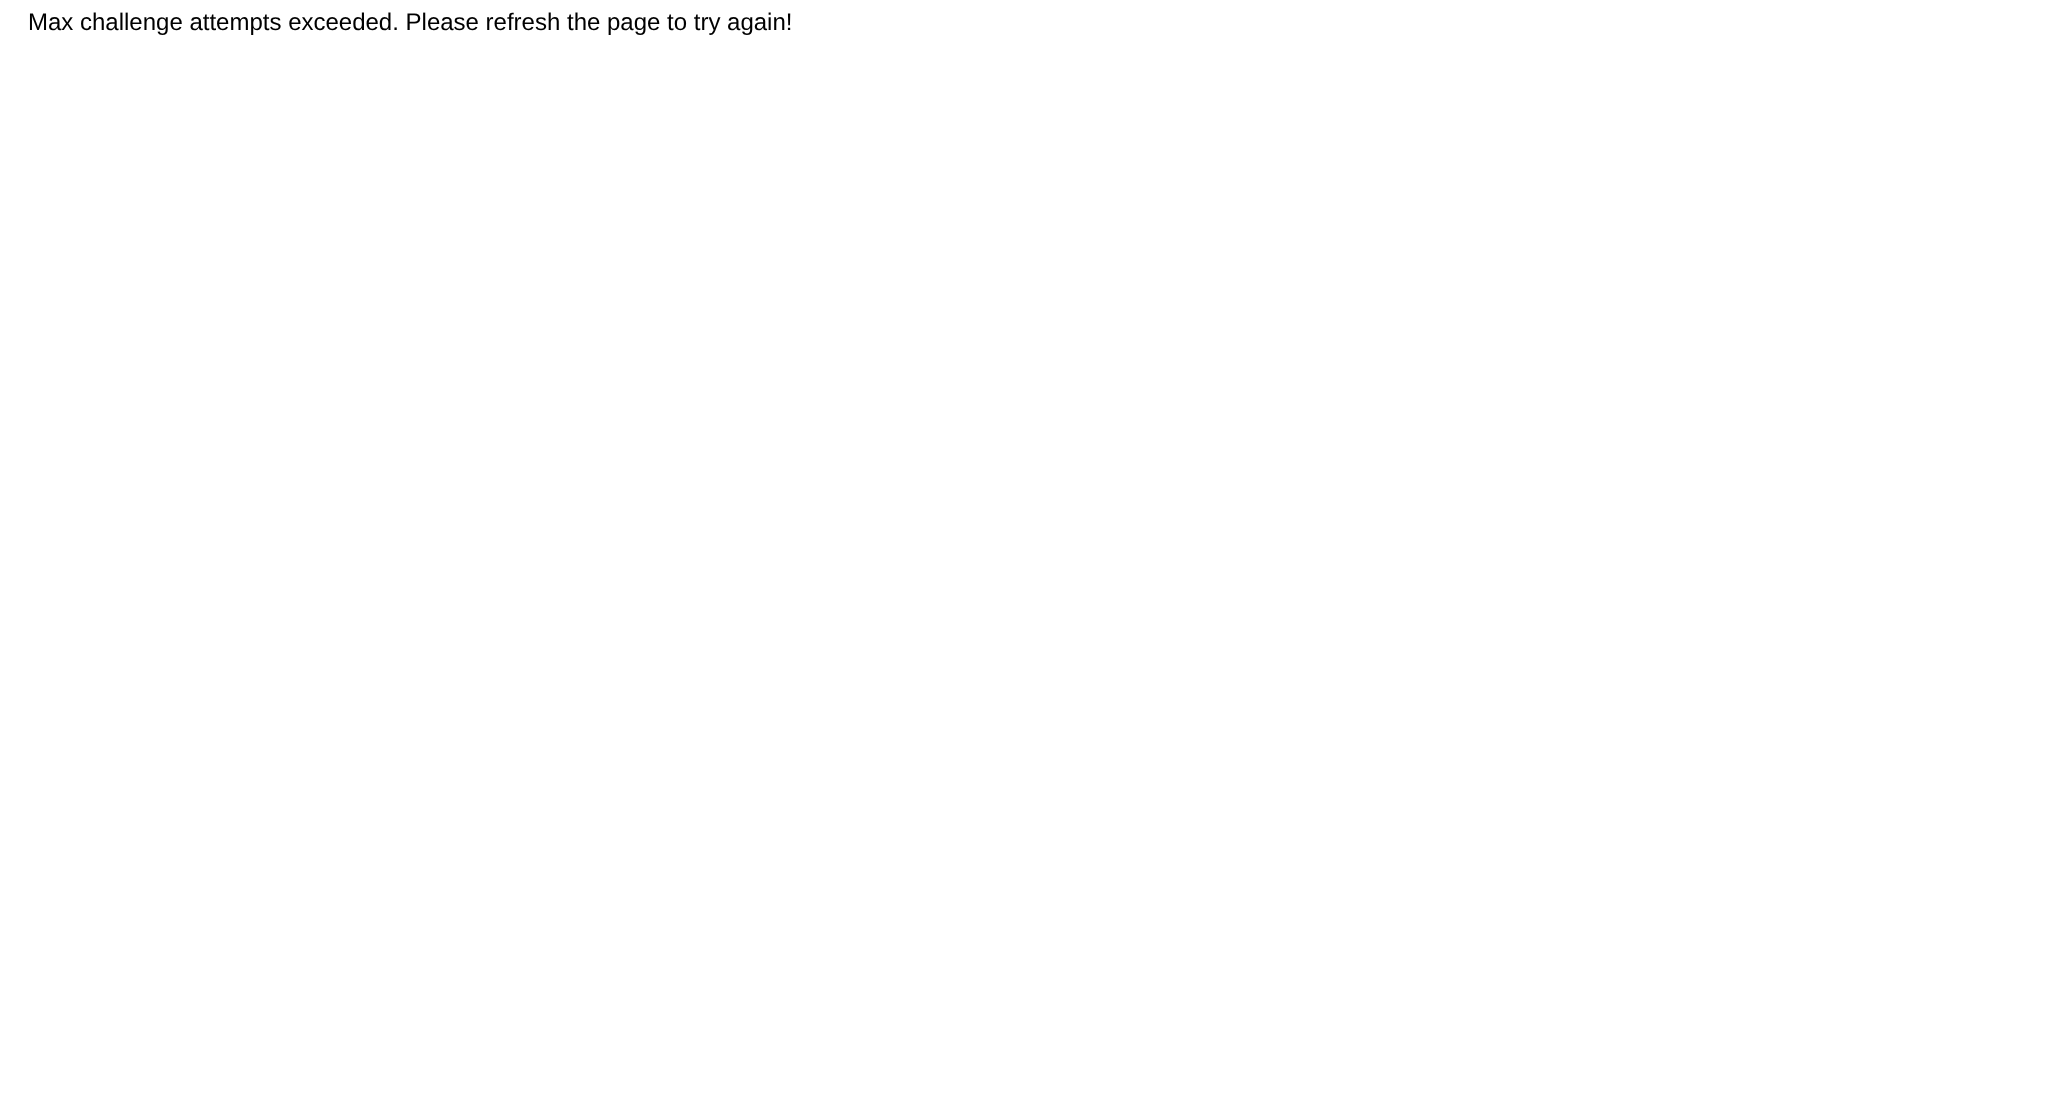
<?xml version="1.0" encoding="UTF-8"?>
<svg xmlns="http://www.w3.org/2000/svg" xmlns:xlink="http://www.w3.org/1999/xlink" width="2060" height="1120">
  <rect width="100%" height="100%" fill="#ffffff" />
  <text x="28" y="30" style="font-family: Liberation Sans; font-size: 24px; fill: #000000">Max challenge attempts exceeded. Please refresh the page to try again!</text>
</svg>
